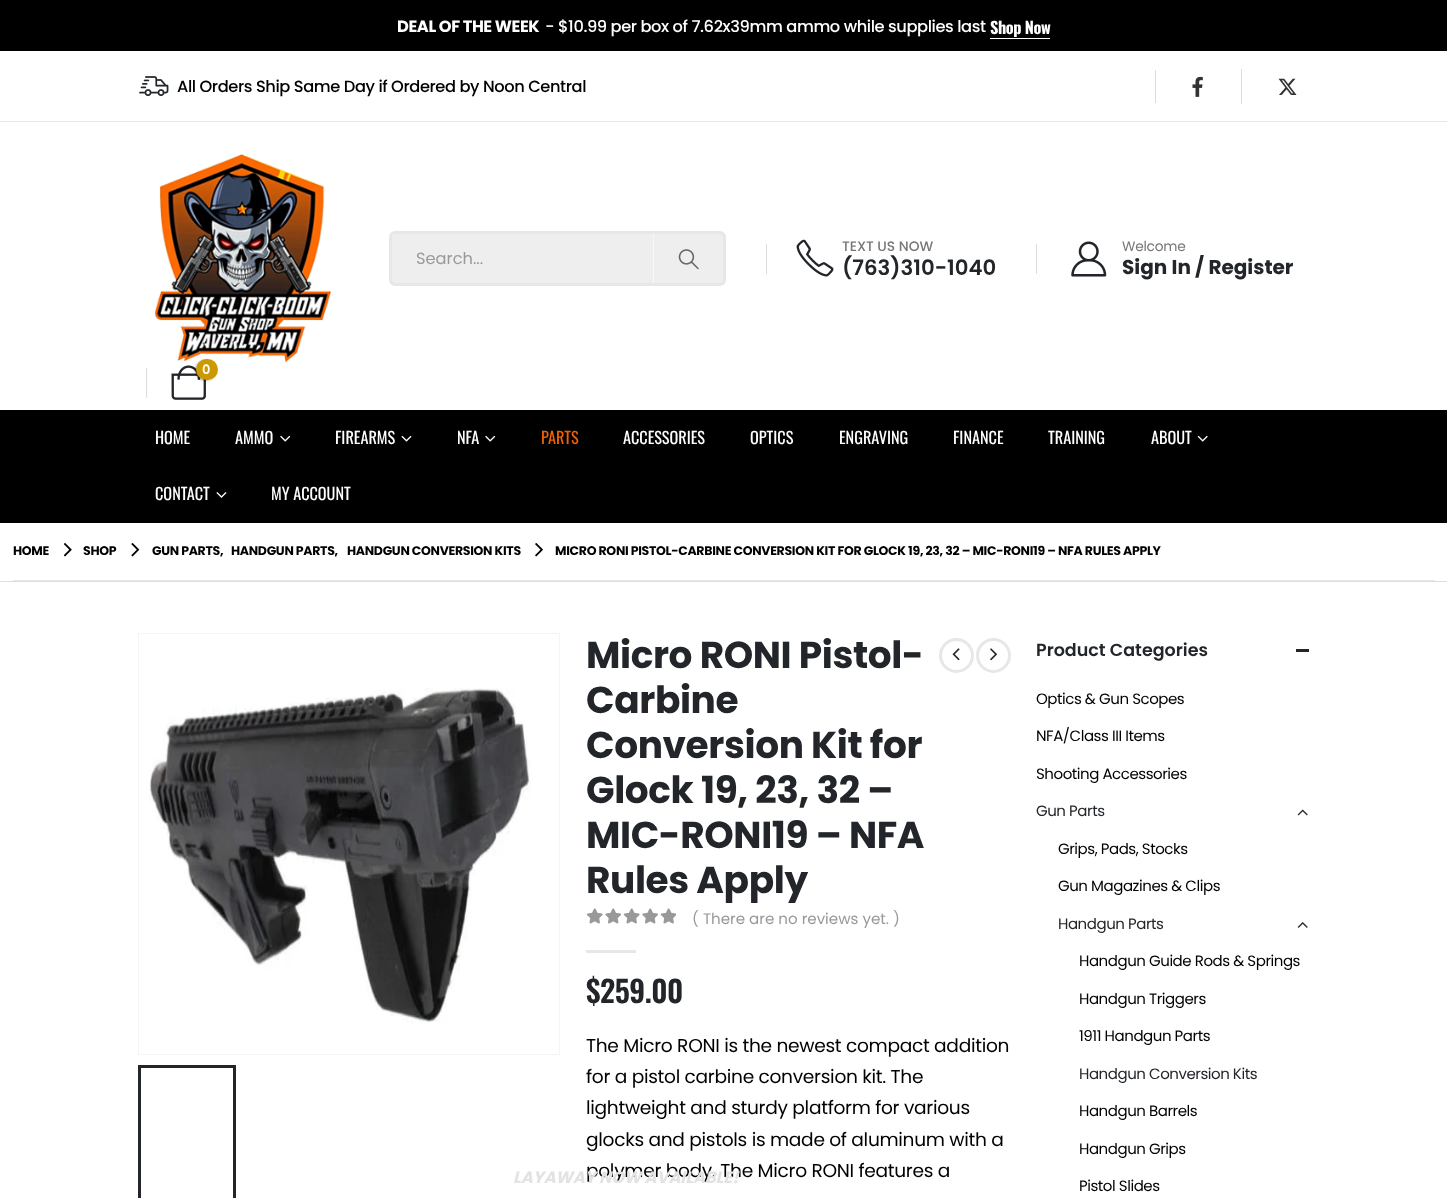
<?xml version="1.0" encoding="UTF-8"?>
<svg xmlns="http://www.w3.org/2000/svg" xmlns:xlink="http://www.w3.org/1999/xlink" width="1447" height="1198">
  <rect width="100%" height="100%" fill="#ffffff" />
  <rect width="1447" height="51" fill="#000000" />
  <rect x="990" y="38" width="60" height="1" fill="#ffffff" />
  <rect y="121" width="1447" height="1" fill="#e7e7e7" />
  <image x="139" y="76" width="30" height="21" xlink:href="image1.png" />
  <rect x="1155" y="70" width="1" height="33" fill="#dadcdd" />
  <image x="1192" y="76" width="11" height="21" xlink:href="image2.png" />
  <rect x="1241" y="69" width="1" height="35" fill="#dadcdd" />
  <image x="1278" y="78" width="19" height="17" xlink:href="image3.png" />
  <image x="155" y="154" width="176" height="209" xlink:href="image4.png" />
  <rect x="390.5" y="232.5" width="334" height="52" rx="4.5" fill="#eeeeee" stroke="#e7e7e7" stroke-width="3" />
  <rect x="653" y="234" width="1" height="50" fill="#ffffff" fill-opacity="0.5" />
  <image x="678" y="249" width="21" height="21" xlink:href="image5.png" />
  <rect x="766" y="244" width="1" height="30" fill="#dadcdd" />
  <image x="796" y="239" width="38" height="38" xlink:href="image6.png" />
  <rect x="1036" y="244" width="1" height="30" fill="#dadcdd" />
  <image x="1071" y="241" width="36" height="36" xlink:href="image7.png" />
  <rect x="146" y="368" width="1" height="30" fill="#dadcdd" />
  <image x="171" y="365" width="35" height="35" xlink:href="image8.png" />
  <rect x="195" y="360" width="21" height="21" rx="10.5" fill="#000000" fill-opacity="0.3" filter="blur(1px)" />
  <rect x="196" y="359" width="22" height="21" rx="10.5" fill="#cc9900" />
  <rect y="410" width="1447" height="113" fill="#000000" />
  <image x="280" y="435" width="11" height="7" xlink:href="image9.png" />
  <image x="401" y="435" width="11" height="7" xlink:href="image10.png" />
  <image x="485" y="435" width="11" height="7" xlink:href="image9.png" />
  <image x="1197" y="435" width="11" height="7" xlink:href="image11.png" />
  <image x="216" y="492" width="11" height="6" xlink:href="image12.png" />
  <rect y="581" width="1447" height="1" fill="#dfdfdf" />
  <image x="63" y="543" width="9" height="14" xlink:href="image13.png" />
  <image x="131" y="543" width="9" height="14" xlink:href="image14.png" />
  <image x="535" y="543" width="8" height="14" xlink:href="image15.png" />
  <rect x="13" y="580" width="1422" height="1" fill="#e7e7e7" />
  <rect x="138.5" y="633.5" width="421" height="421" fill="none" stroke="#f4f4f4" />
  <image x="149" y="688" width="382" height="335" xlink:href="image16.png" />
  <rect x="139.5" y="1066.5" width="95" height="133" fill="none" stroke="#222529" stroke-width="3" />
  <circle cx="956.5" cy="655.5" r="16" fill="none" stroke="#e7e7e7" stroke-width="3" />
  <image x="952" y="648" width="8" height="13" xlink:href="image17.png" />
  <circle cx="993.5" cy="655.5" r="16" fill="none" stroke="#e7e7e7" stroke-width="3" />
  <image x="990" y="648" width="7" height="13" xlink:href="image18.png" />
  <image x="586" y="908" width="90" height="16" xlink:href="image19.png" />
  <rect x="586" y="950" width="50" height="3" fill="#e7e7e7" />
  <rect x="1296" y="649" width="13" height="3" fill="#222529" />
  <image x="1297" y="809" width="11" height="7" xlink:href="image20.png" />
  <image x="1297" y="922" width="11" height="6" xlink:href="image21.png" />
  <text x="397" y="32" style="font-family: Poppins; font-size: 16.25px; font-weight: bold; letter-spacing: -0.4px; fill: #ffffff">DEAL OF THE WEEK</text>
  <text x="545" y="32" style="font-family: Poppins; font-size: 16.25px; font-weight: 500; letter-spacing: -0.4px; fill: #ffffff">- $10.99 per box of 7.62x39mm ammo while supplies last</text>
  <text x="990" y="34" style="font-family: Oswald; font-size: 16.25px; font-weight: bold; letter-spacing: -0.4px; fill: #ffffff">Shop Now</text>
  <text x="177" y="92" style="font-family: Poppins; font-size: 16.25px; font-weight: 500; letter-spacing: -0.4px; fill: #000000">All Orders Ship Same Day if Ordered by Noon Central</text>
  <text x="416" y="264" style="font-family: Poppins; font-size: 16.25px; fill: #999999">Search...</text>
  <text x="842" y="251" style="font-family: Poppins; font-size: 13.75px; font-weight: 500; fill: #777777">TEXT US NOW</text>
  <text x="842" y="275" style="font-family: Poppins; font-size: 21.25px; font-weight: 600; fill: #222529">(763)310-1040</text>
  <text x="1122" y="251" style="font-family: Poppins; font-size: 13.75px; letter-spacing: -0.25px; fill: #777777">Welcome</text>
  <text x="1122" y="274" style="font-family: Poppins; font-size: 20px; font-weight: bold; fill: #222529">Sign In / Register</text>
  <text x="202" y="374" style="font-family: Poppins; font-size: 13px; font-weight: 600; fill: #ffffff">0</text>
  <text x="155" y="444" style="font-family: Oswald; font-size: 16.25px; fill: #ffffff">HOME</text>
  <text x="235" y="444" style="font-family: Oswald; font-size: 16.25px; fill: #ffffff">AMMO</text>
  <text x="335" y="444" style="font-family: Oswald; font-size: 16.25px; fill: #ffffff">FIREARMS</text>
  <text x="457" y="444" style="font-family: Oswald; font-size: 16.25px; fill: #ffffff">NFA</text>
  <text x="541" y="444" style="font-family: Oswald; font-size: 16.25px; fill: #f26100">PARTS</text>
  <text x="623" y="444" style="font-family: Oswald; font-size: 16.25px; fill: #ffffff">ACCESSORIES</text>
  <text x="750" y="444" style="font-family: Oswald; font-size: 16.25px; fill: #ffffff">OPTICS</text>
  <text x="839" y="444" style="font-family: Oswald; font-size: 16.25px; fill: #ffffff">ENGRAVING</text>
  <text x="953" y="444" style="font-family: Oswald; font-size: 16.25px; fill: #ffffff">FINANCE</text>
  <text x="1048" y="444" style="font-family: Oswald; font-size: 16.25px; fill: #ffffff">TRAINING</text>
  <text x="1151" y="444" style="font-family: Oswald; font-size: 16.25px; fill: #ffffff">ABOUT</text>
  <text x="155" y="500" style="font-family: Oswald; font-size: 16.25px; fill: #ffffff">CONTACT</text>
  <text x="271" y="500" style="font-family: Oswald; font-size: 16.25px; fill: #ffffff">MY ACCOUNT</text>
  <text x="13" y="555" style="font-family: Poppins; font-size: 12.5px; font-weight: bold; letter-spacing: -0.3px; fill: #000000">HOME</text>
  <text x="83" y="555" style="font-family: Poppins; font-size: 12.5px; font-weight: bold; letter-spacing: -0.3px; fill: #000000">SHOP</text>
  <text x="152" y="555" style="font-family: Poppins; font-size: 12.5px; font-weight: bold; letter-spacing: -0.3px; fill: #000000">GUN PARTS,</text>
  <text x="231" y="555" style="font-family: Poppins; font-size: 12.5px; font-weight: bold; letter-spacing: -0.3px; fill: #000000">HANDGUN PARTS,</text>
  <text x="347" y="555" style="font-family: Poppins; font-size: 12.5px; font-weight: bold; letter-spacing: -0.3px; fill: #000000">HANDGUN CONVERSION KITS</text>
  <text x="555" y="555" style="font-family: Poppins; font-size: 12.5px; font-weight: bold; letter-spacing: -0.3px; fill: #000000">MICRO RONI PISTOL-CARBINE CONVERSION KIT FOR GLOCK 19, 23, 32 – MIC-RONI19 – NFA RULES APPLY</text>
  <text x="586" y="668" style="font-family: Poppins; font-size: 37.5px; font-weight: bold; letter-spacing: -0.4px; fill: #222529">Micro RONI Pistol-</text>
  <text x="586" y="713" style="font-family: Poppins; font-size: 37.5px; font-weight: bold; letter-spacing: -0.4px; fill: #222529">Carbine</text>
  <text x="586" y="758" style="font-family: Poppins; font-size: 37.5px; font-weight: bold; letter-spacing: -0.4px; fill: #222529">Conversion Kit for</text>
  <text x="586" y="803" style="font-family: Poppins; font-size: 37.5px; font-weight: bold; letter-spacing: -0.4px; fill: #222529">Glock 19, 23, 32 –</text>
  <text x="586" y="848" style="font-family: Poppins; font-size: 37.5px; font-weight: bold; letter-spacing: -0.4px; fill: #222529">MIC-RONI19 – NFA</text>
  <text x="586" y="893" style="font-family: Poppins; font-size: 37.5px; font-weight: bold; letter-spacing: -0.4px; fill: #222529">Rules Apply</text>
  <text x="692" y="924" style="font-family: Poppins; font-size: 15.1px; fill: #999999">( There are no reviews yet. )</text>
  <text x="586" y="1003" style="font-family: Oswald; font-size: 30px; font-weight: 600; letter-spacing: -0.5px; fill: #222529">$259.00</text>
  <text x="586" y="1052" style="font-family: Poppins; font-size: 18.6px; letter-spacing: -0.3px; fill: #000000">The Micro RONI is the newest compact addition</text>
  <text x="586" y="1083" style="font-family: Poppins; font-size: 18.6px; letter-spacing: -0.3px; fill: #000000">for a pistol carbine conversion kit. The</text>
  <text x="586" y="1114" style="font-family: Poppins; font-size: 18.6px; letter-spacing: -0.3px; fill: #000000">lightweight and sturdy platform for various</text>
  <text x="586" y="1146" style="font-family: Poppins; font-size: 18.6px; letter-spacing: -0.3px; fill: #000000">glocks and pistols is made of aluminum with a</text>
  <text x="586" y="1177" style="font-family: Poppins; font-size: 18.6px; letter-spacing: -0.3px; fill: #000000">polymer body. The Micro RONI features a</text>
  <text x="1036" y="656" style="font-family: Poppins; font-size: 17.5px; font-weight: 600; fill: #222529">Product Categories</text>
  <text x="1036" y="704" style="font-family: Poppins; font-size: 15px; letter-spacing: -0.45px; fill: #000000">Optics &amp; Gun Scopes</text>
  <text x="1036" y="741" style="font-family: Poppins; font-size: 15px; letter-spacing: -0.45px; fill: #000000">NFA/Class III Items</text>
  <text x="1036" y="779" style="font-family: Poppins; font-size: 15px; letter-spacing: -0.45px; fill: #000000">Shooting Accessories</text>
  <text x="1036" y="816" style="font-family: Poppins; font-size: 15px; letter-spacing: -0.45px; fill: #222529">Gun Parts</text>
  <text x="1058" y="854" style="font-family: Poppins; font-size: 15px; letter-spacing: -0.45px; fill: #000000">Grips, Pads, Stocks</text>
  <text x="1058" y="891" style="font-family: Poppins; font-size: 15px; letter-spacing: -0.45px; fill: #000000">Gun Magazines &amp; Clips</text>
  <text x="1058" y="929" style="font-family: Poppins; font-size: 15px; letter-spacing: -0.45px; fill: #222529">Handgun Parts</text>
  <text x="1079" y="966" style="font-family: Poppins; font-size: 15px; letter-spacing: -0.45px; fill: #000000">Handgun Guide Rods &amp; Springs</text>
  <text x="1079" y="1004" style="font-family: Poppins; font-size: 15px; letter-spacing: -0.45px; fill: #000000">Handgun Triggers</text>
  <text x="1079" y="1041" style="font-family: Poppins; font-size: 15px; letter-spacing: -0.45px; fill: #000000">1911 Handgun Parts</text>
  <text x="1079" y="1079" style="font-family: Poppins; font-size: 15px; letter-spacing: -0.45px; fill: #222529">Handgun Conversion Kits</text>
  <text x="1079" y="1116" style="font-family: Poppins; font-size: 15px; letter-spacing: -0.45px; fill: #000000">Handgun Barrels</text>
  <text x="1079" y="1154" style="font-family: Poppins; font-size: 15px; letter-spacing: -0.45px; fill: #000000">Handgun Grips</text>
  <text x="1079" y="1191" style="font-family: Poppins; font-size: 15px; letter-spacing: -0.45px; fill: #000000">Pistol Slides</text>
  <text x="513" y="1183" style="font-family: Poppins; font-size: 16.25px; font-weight: bold; font-style: italic; fill: #e3e3e3">LAYAWAY NOW AVAILABLE!</text>
</svg>
